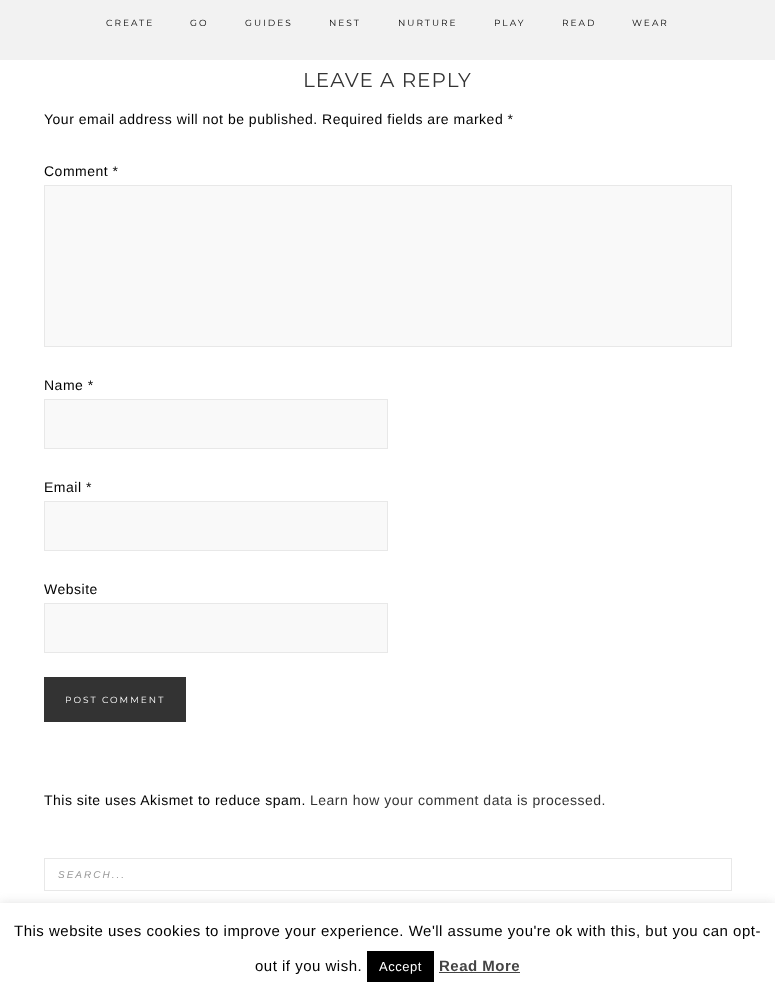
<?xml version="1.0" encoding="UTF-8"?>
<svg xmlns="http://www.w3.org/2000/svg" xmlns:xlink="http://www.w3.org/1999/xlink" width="775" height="994">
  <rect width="100%" height="100%" fill="#ffffff" />
  <rect width="775" height="60" fill="#f2f2f2" />
  <rect x="44.5" y="185.5" width="687" height="161" fill="#f9f9f9" stroke="#e8e8e8" />
  <rect x="44.5" y="399.5" width="343" height="49" fill="#f9f9f9" stroke="#e8e8e8" />
  <rect x="44.5" y="501.5" width="343" height="49" fill="#f9f9f9" stroke="#e8e8e8" />
  <rect x="44.5" y="603.5" width="343" height="49" fill="#f9f9f9" stroke="#e8e8e8" />
  <rect x="44" y="677" width="142" height="45" fill="#333333" />
  <rect x="44.5" y="858.5" width="687" height="32" fill="none" stroke="#e8e8e8" />
  <rect y="902" width="775" height="91" fill="#acabab" fill-opacity="0.3" filter="blur(5px)" />
  <rect y="903" width="775" height="91" fill="#ffffff" />
  <rect x="367" y="951" width="67" height="31" fill="#000000" />
  <rect x="439" y="972" width="81" height="1" fill="#444444" />
  <text x="106" y="26" style="font-family: Montserrat; font-size: 9px; font-weight: 100; letter-spacing: 2px; fill: #000000">CREATE</text>
  <text x="190" y="26" style="font-family: Montserrat; font-size: 9px; font-weight: 100; letter-spacing: 2px; fill: #000000">GO</text>
  <text x="245" y="26" style="font-family: Montserrat; font-size: 9px; font-weight: 100; letter-spacing: 2px; fill: #000000">GUIDES</text>
  <text x="329" y="26" style="font-family: Montserrat; font-size: 9px; font-weight: 100; letter-spacing: 2px; fill: #000000">NEST</text>
  <text x="398" y="26" style="font-family: Montserrat; font-size: 9px; font-weight: 100; letter-spacing: 2px; fill: #000000">NURTURE</text>
  <text x="494" y="26" style="font-family: Montserrat; font-size: 9px; font-weight: 100; letter-spacing: 2px; fill: #000000">PLAY</text>
  <text x="562" y="26" style="font-family: Montserrat; font-size: 9px; font-weight: 100; letter-spacing: 2px; fill: #000000">READ</text>
  <text x="632" y="26" style="font-family: Montserrat; font-size: 9px; font-weight: 100; letter-spacing: 2px; fill: #000000">WEAR</text>
  <text x="303" y="87" style="font-family: Montserrat; font-size: 20px; font-weight: 100; letter-spacing: 1px; fill: #333333">LEAVE A REPLY</text>
  <text x="44" y="124" style="font-family: Liberation Sans; font-size: 14px; letter-spacing: 0.5px; fill: #000000">Your email address will not be published. Required fields are marked *</text>
  <text x="44" y="176" style="font-family: Liberation Sans; font-size: 14px; letter-spacing: 0.5px; fill: #000000">Comment *</text>
  <text x="44" y="390" style="font-family: Liberation Sans; font-size: 14px; letter-spacing: 0.5px; fill: #000000">Name *</text>
  <text x="44" y="492" style="font-family: Liberation Sans; font-size: 14px; letter-spacing: 0.5px; fill: #000000">Email *</text>
  <text x="44" y="594" style="font-family: Liberation Sans; font-size: 14px; letter-spacing: 0.5px; fill: #000000">Website</text>
  <text x="65" y="703" style="font-family: Montserrat; font-size: 9px; font-weight: 100; letter-spacing: 2px; fill: #ffffff">POST COMMENT</text>
  <text x="44" y="805" style="font-family: Liberation Sans; font-size: 14px; letter-spacing: 0.5px; fill: #000000">This site uses Akismet to reduce spam.</text>
  <text x="310" y="805" style="font-family: Liberation Sans; font-size: 14px; letter-spacing: 0.5px; fill: #333333">Learn how your comment data is processed.</text>
  <text x="58" y="878" style="font-family: Liberation Sans; font-size: 10px; font-style: italic; letter-spacing: 2px; fill: #999999">SEARCH...</text>
  <text x="14" y="936" style="font-family: Liberation Sans; font-size: 15px; letter-spacing: 0.5px; fill: #000000">This website uses cookies to improve your experience. We'll assume you're ok with this, but you can opt-</text>
  <text x="255" y="971" style="font-family: Liberation Sans; font-size: 15px; letter-spacing: 0.5px; fill: #000000">out if you wish.</text>
  <text x="379" y="971" style="font-family: Liberation Sans; font-size: 13px; letter-spacing: 0.5px; fill: #ffffff">Accept</text>
  <text x="439" y="971" style="font-family: Liberation Sans; font-size: 15px; font-weight: bold; letter-spacing: 0.5px; fill: #444444">Read More</text>
</svg>
